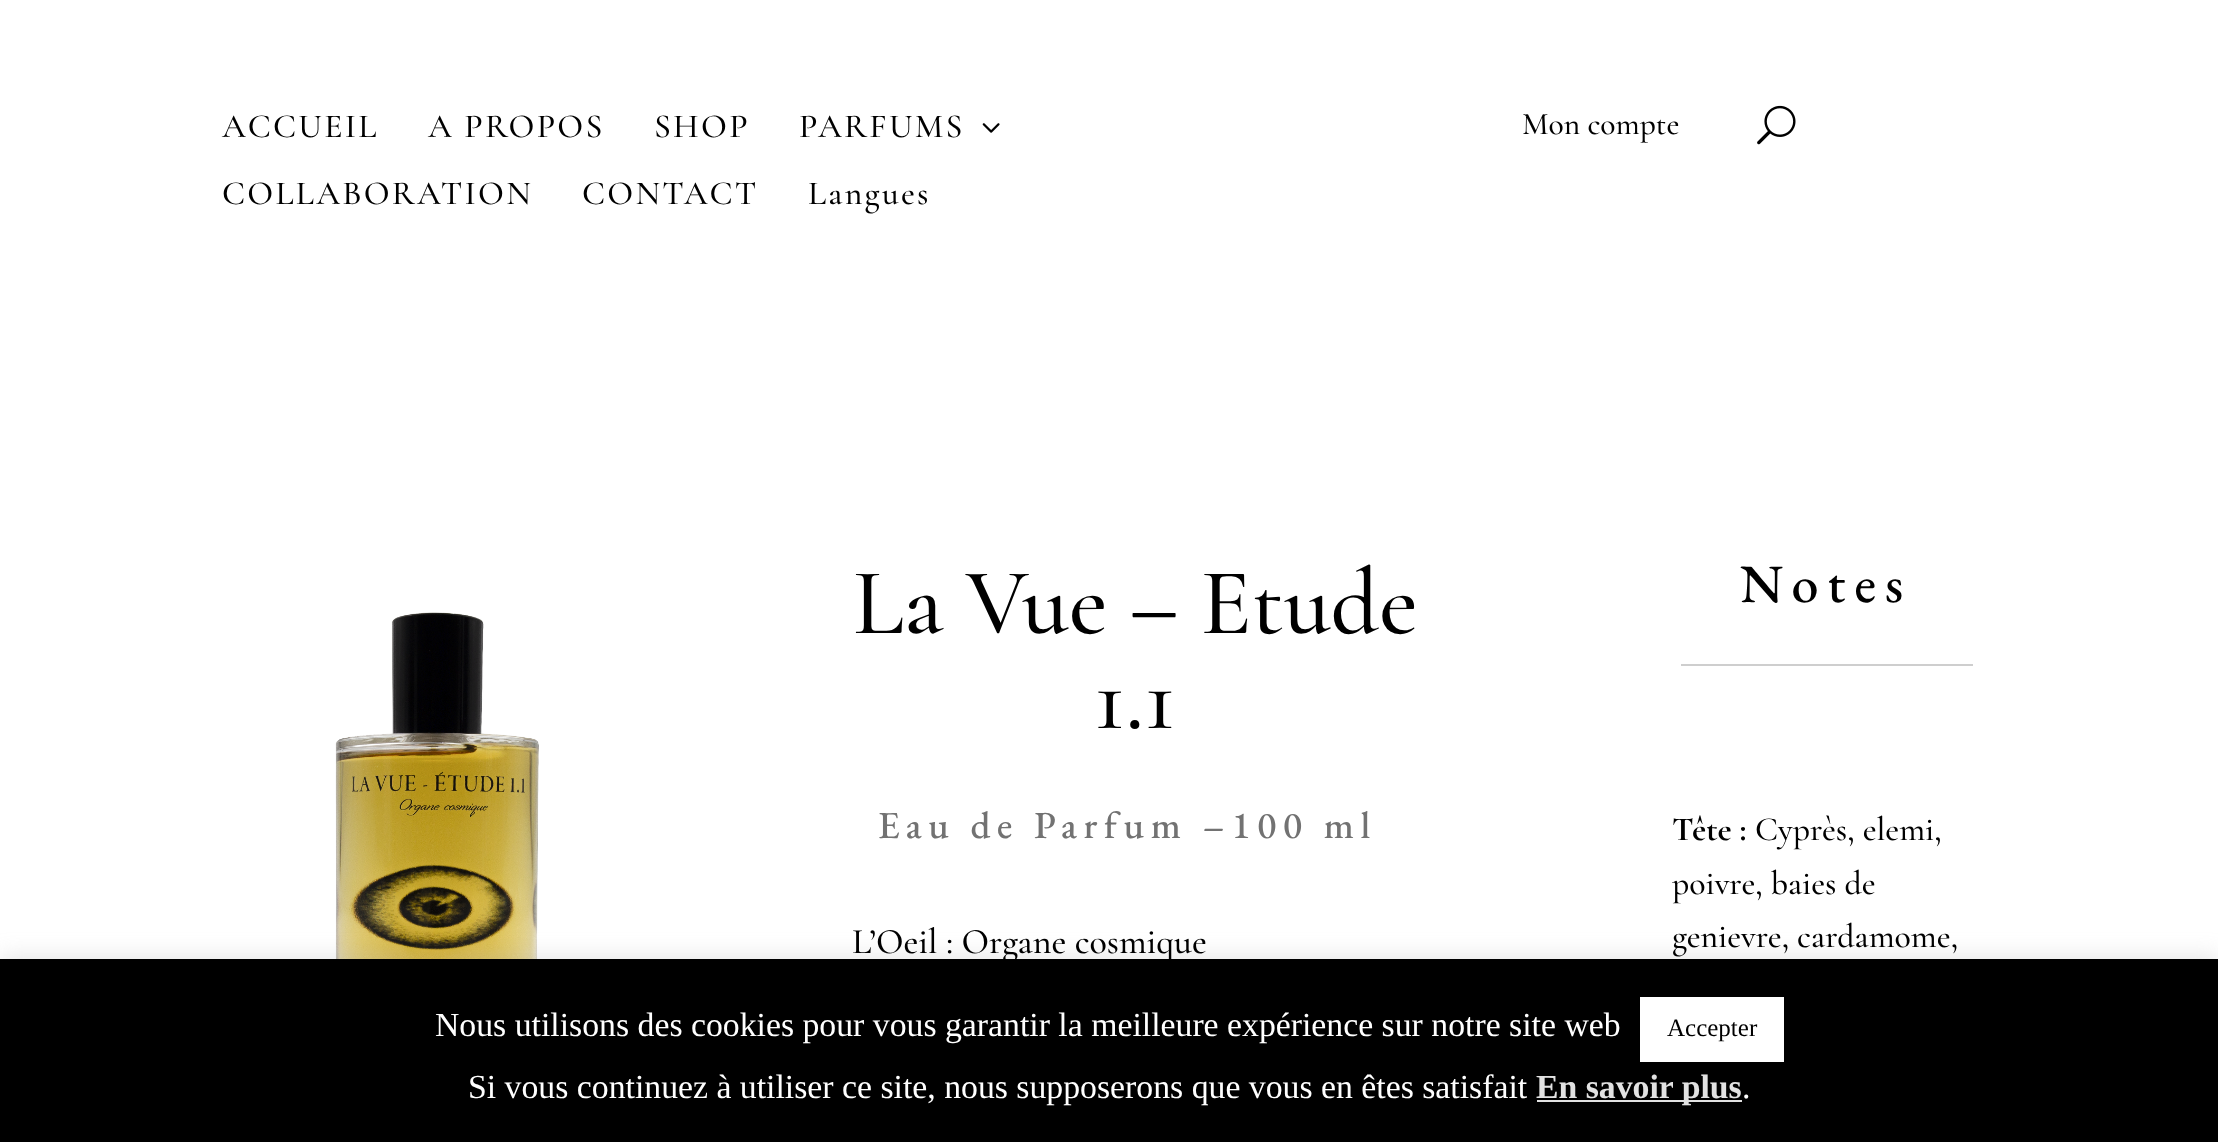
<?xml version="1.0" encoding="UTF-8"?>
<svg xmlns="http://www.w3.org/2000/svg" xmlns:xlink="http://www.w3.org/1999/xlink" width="2218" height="1142">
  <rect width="100%" height="100%" fill="#ffffff" />
  <image x="982" y="123" width="18" height="10" xlink:href="image1.png" />
  <image x="1757" y="105" width="39" height="40" xlink:href="image2.png" />
  <image x="168" y="612" width="561" height="347" xlink:href="image3.png" />
  <rect x="1681" y="664" width="292" height="2" fill="#cecece" />
  <rect y="956" width="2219" height="185" fill="#acabab" fill-opacity="0.3" filter="blur(11px)" />
  <rect y="959" width="2218" height="183" fill="#000000" />
  <rect x="1640" y="997" width="144" height="65" fill="#ffffff" />
  <rect x="1537" y="1100" width="205" height="2" fill="#e2e2e2" />
  <text x="222" y="137" style="font-family: Cormorant Garamond; font-size: 33.75px; font-weight: 500; letter-spacing: 2.25px; fill: #000000">ACCUEIL</text>
  <text x="428" y="137" style="font-family: Cormorant Garamond; font-size: 33.75px; font-weight: 500; letter-spacing: 2.25px; fill: #000000">A PROPOS</text>
  <text x="654" y="137" style="font-family: Cormorant Garamond; font-size: 33.75px; font-weight: 500; letter-spacing: 2.25px; fill: #000000">SHOP</text>
  <text x="799" y="137" style="font-family: Cormorant Garamond; font-size: 33.75px; font-weight: 500; letter-spacing: 2.25px; fill: #000000">PARFUMS</text>
  <text x="222" y="204" style="font-family: Cormorant Garamond; font-size: 33.75px; font-weight: 500; letter-spacing: 2.25px; fill: #000000">COLLABORATION</text>
  <text x="582" y="204" style="font-family: Cormorant Garamond; font-size: 33.75px; font-weight: 500; letter-spacing: 2.25px; fill: #000000">CONTACT</text>
  <text x="808" y="204" style="font-family: Cormorant Garamond; font-size: 33.75px; font-weight: 500; letter-spacing: 2.25px; fill: #000000">Langues</text>
  <text x="1522" y="134" style="font-family: Cormorant Garamond; font-size: 31.5px; font-weight: 500; fill: #000000">Mon compte</text>
  <text x="853" y="633" style="font-family: Cormorant Garamond; font-size: 94.5px; font-weight: 500; fill: #000000">La Vue – Etude</text>
  <text x="1094" y="728" style="font-family: Cormorant Garamond; font-size: 94.5px; font-weight: 500; fill: #000000">1.1</text>
  <text x="878" y="838" style="font-family: EB Garamond; font-size: 38.25px; font-weight: 500; letter-spacing: 6.75px; fill: #727272">Eau de Parfum –100 ml</text>
  <text x="852" y="953" style="font-family: Cormorant Garamond; font-size: 36px; font-weight: 500; fill: #000000">L’Oeil : Organe cosmique</text>
  <text x="1740" y="602" style="font-family: EB Garamond; font-size: 54px; font-weight: 500; letter-spacing: 9px; fill: #000000">Notes</text>
  <text x="1672" y="840" style="font-family: Cormorant Garamond; font-size: 33.75px; font-weight: bold; fill: #000000">Tête :</text>
  <text x="1755" y="840" style="font-family: Cormorant Garamond; font-size: 33.75px; font-weight: 500; fill: #000000">Cyprès, elemi,</text>
  <text x="1672" y="894" style="font-family: Cormorant Garamond; font-size: 33.75px; font-weight: 500; fill: #000000">poivre, baies de</text>
  <text x="1672" y="947" style="font-family: Cormorant Garamond; font-size: 33.75px; font-weight: 500; fill: #000000">genievre, cardamome,</text>
  <text x="435" y="1036" style="font-family: Liberation Serif; font-size: 33.75px; fill: #ffffff">Nous utilisons des cookies pour vous garantir la meilleure expérience sur notre site web</text>
  <text x="1667" y="1036" style="font-family: Liberation Serif; font-size: 25px; fill: #000000">Accepter</text>
  <text x="468" y="1098" style="font-family: Liberation Serif; font-size: 33.75px; fill: #ffffff">Si vous continuez à utiliser ce site, nous supposerons que vous en êtes satisfait</text>
  <text x="1536" y="1098" style="font-family: Liberation Serif; font-size: 33.75px; font-weight: bold; fill: #e2e2e2">En savoir plus</text>
  <text x="1742" y="1098" style="font-family: Liberation Serif; font-size: 33.75px; fill: #ffffff">.</text>
</svg>
